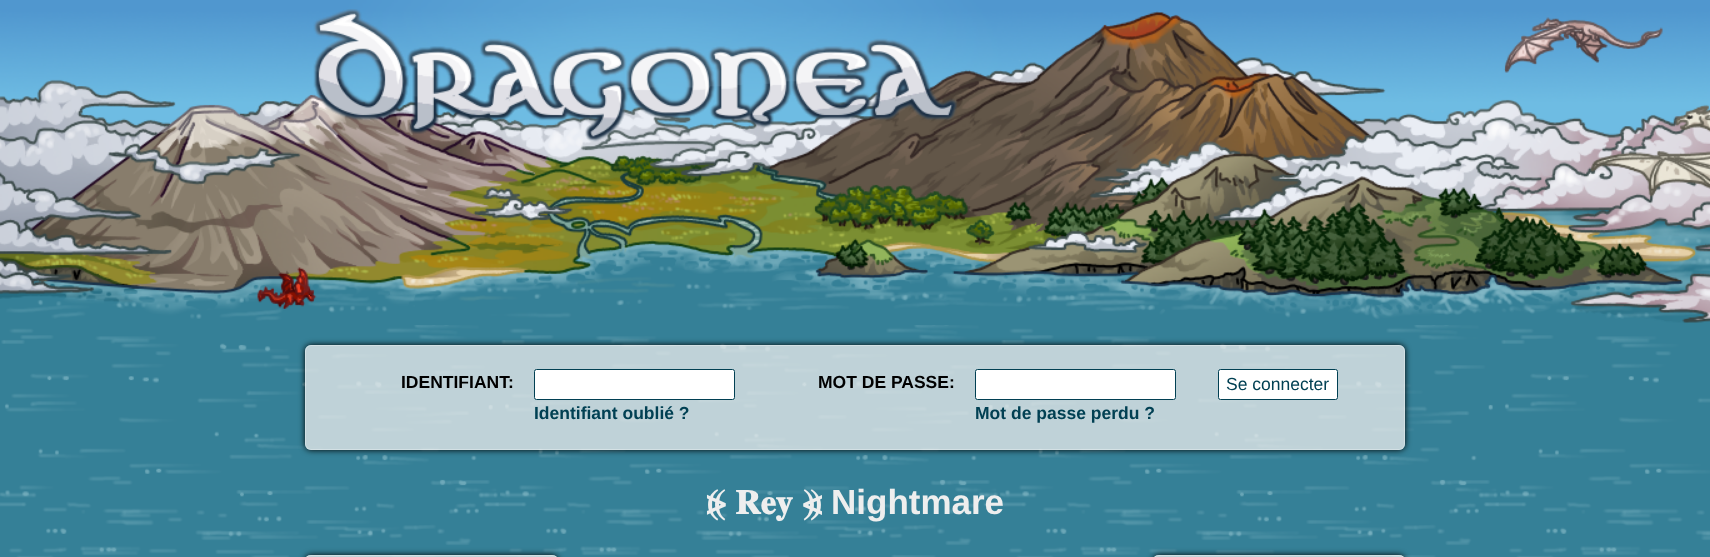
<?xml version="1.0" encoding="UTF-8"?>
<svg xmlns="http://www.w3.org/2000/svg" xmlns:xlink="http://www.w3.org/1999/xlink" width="1710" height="557">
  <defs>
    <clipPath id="clip1"><path d="M 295 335 h 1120 v 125 h -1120 z m 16 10 h 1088 c 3.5 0 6 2.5 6 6 v 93 c 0 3.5 -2.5 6 -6 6 h -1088 c -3.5 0 -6 -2.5 -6 -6 v -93 c 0 -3.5 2.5 -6 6 -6 z" clip-rule="evenodd" /></clipPath>
    <clipPath id="clip2"><path d="M 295 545 h 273 v 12 h -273 z m 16 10 h 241 c 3.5 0 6 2.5 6 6 v 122 c 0 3.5 -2.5 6 -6 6 h -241 c -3.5 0 -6 -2.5 -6 -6 v -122 c 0 -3.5 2.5 -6 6 -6 z" clip-rule="evenodd" /></clipPath>
    <clipPath id="clip3"><path d="M 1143 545 h 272 v 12 h -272 z m 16 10 h 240 c 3.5 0 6 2.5 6 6 v 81 c 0 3.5 -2.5 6 -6 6 h -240 c -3.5 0 -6 -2.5 -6 -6 v -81 c 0 -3.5 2.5 -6 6 -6 z" clip-rule="evenodd" /></clipPath>
  </defs>
  <rect width="100%" height="100%" fill="#ffffff" />
  <image x="0" y="325" width="1710" height="232" xlink:href="image1.png" />
  <image x="0" y="0" width="1710" height="325" xlink:href="image2.png" />
  <image x="313" y="9" width="644" height="133" xlink:href="image3.png" />
  <g clip-path="url(#clip1)">
    <rect x="305" y="345" width="1100" height="105" rx="6" fill="#000000" filter="blur(3px)" />
  </g>
  <rect x="305" y="345" width="1100" height="105" rx="6" fill="#eeeeee" fill-opacity="0.75" />
  <rect x="305.5" y="345.5" width="1099" height="104" rx="5.5" fill="none" stroke="#ffffff" stroke-opacity="0.32" />
  <rect x="1218.5" y="369.5" width="119" height="30" rx="2" fill="#ffffff" stroke="#014053" />
  <rect x="534.5" y="369.5" width="200" height="30" rx="2" fill="#ffffff" stroke="#014053" />
  <rect x="975.5" y="369.5" width="200" height="30" rx="2" fill="#ffffff" stroke="#014053" />
  <g clip-path="url(#clip2)">
    <rect x="305" y="555" width="253" height="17" rx="6" fill="#000000" filter="blur(3px)" />
  </g>
  <rect x="305" y="555" width="253" height="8" rx="6" fill="#eeeeee" fill-opacity="0.75" />
  <rect x="305.5" y="555.5" width="252" height="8" rx="5.5" fill="none" stroke="#ffffff" stroke-opacity="0.32" />
  <g clip-path="url(#clip3)">
    <rect x="1153" y="555" width="252" height="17" rx="6" fill="#000000" filter="blur(3px)" />
  </g>
  <rect x="1153" y="555" width="252" height="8" rx="6" fill="#eeeeee" fill-opacity="0.75" />
  <rect x="1153.5" y="555.5" width="251" height="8" rx="5.5" fill="none" stroke="#ffffff" stroke-opacity="0.32" />
  <text x="401" y="388" style="font-family: Liberation Sans; font-size: 17.5px; font-weight: bold; fill: #000000">IDENTIFIANT:</text>
  <text x="818" y="388" style="font-family: Liberation Sans; font-size: 17.5px; font-weight: bold; fill: #000000">MOT DE PASSE:</text>
  <text x="1226" y="390" style="font-family: Liberation Sans; font-size: 17.5px; fill: #014053">Se connecter</text>
  <text x="534" y="419" style="font-family: Liberation Sans; font-size: 17.5px; font-weight: bold; fill: #014053">Identifiant oublié ?</text>
  <text x="975" y="419" style="font-family: Liberation Sans; font-size: 17.5px; font-weight: bold; fill: #014053">Mot de passe perdu ?</text>
  <text x="706" y="514" word-spacing="1" style="font-family: FreeSerif; font-size: 35px; font-weight: bold; fill: #eeeeee">⦕ 𝐑𝐞𝐲 ⦖</text>
  <text x="831" y="514" style="font-family: Liberation Sans; font-size: 35px; font-weight: bold; fill: #eeeeee">Nightmare</text>
</svg>
